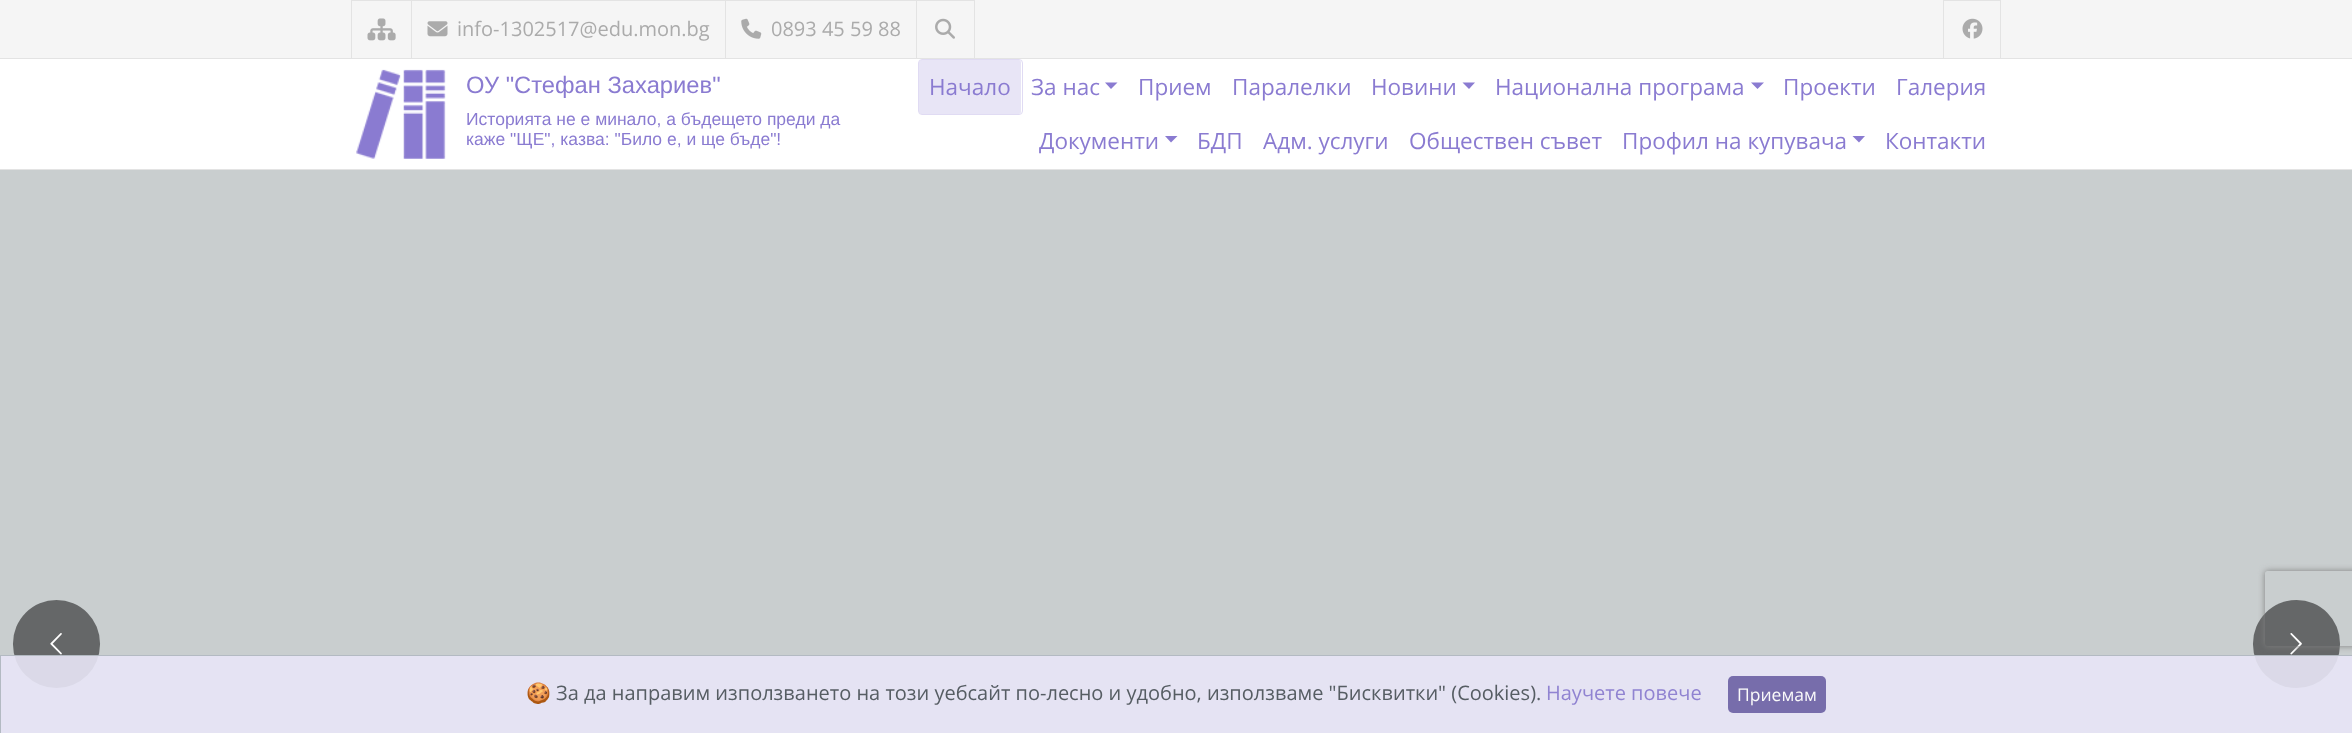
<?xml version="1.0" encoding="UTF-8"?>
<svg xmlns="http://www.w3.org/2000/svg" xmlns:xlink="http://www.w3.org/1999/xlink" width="2352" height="733">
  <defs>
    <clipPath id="clip1"><path d="M 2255 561 h 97 v 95 h -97 z m 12.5 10 h 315 c 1.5 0 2.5 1 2.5 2.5 v 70 c 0 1.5 -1 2.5 -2.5 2.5 h -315 c -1.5 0 -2.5 -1 -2.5 -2.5 v -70 c 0 -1.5 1 -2.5 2.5 -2.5 z" clip-rule="evenodd" /></clipPath>
  </defs>
  <rect width="100%" height="100%" fill="#c9cecf" />
  <rect width="2352" height="58" fill="#f5f5f5" />
  <rect x="916" width="59" height="1" fill="#e3e3e3" />
  <rect x="916" width="1" height="59" fill="#e3e3e3" />
  <rect x="725" width="193" height="1" fill="#e3e3e3" />
  <rect x="725" width="1" height="59" fill="#e3e3e3" />
  <rect x="411" width="315" height="1" fill="#e3e3e3" />
  <rect x="411" width="1" height="59" fill="#e3e3e3" />
  <rect x="351" width="62" height="1" fill="#e3e3e3" />
  <rect x="351" width="1" height="59" fill="#e3e3e3" />
  <image x="367" y="18" width="29" height="23" xlink:href="image1.png" />
  <image x="427" y="21" width="21" height="16" xlink:href="image2.png" />
  <image x="741" y="18" width="21" height="21" xlink:href="image3.png" />
  <rect x="974" width="1" height="59" fill="#e3e3e3" />
  <image x="935" y="18" width="20" height="21" xlink:href="image4.png" />
  <rect x="1943" width="58" height="1" fill="#e3e3e3" />
  <rect x="2000" width="1" height="59" fill="#e3e3e3" />
  <rect x="1943" width="1" height="59" fill="#e3e3e3" />
  <image x="1962" y="18" width="21" height="21" xlink:href="image5.png" />
  <rect x="-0.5" y="58.5" width="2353" height="111" fill="#ffffff" stroke="#e3e3e3" />
  <image x="356" y="69" width="90" height="90" xlink:href="image6.png" />
  <rect x="919" y="60" width="102" height="54" rx="2.5" fill="#e8e5f6" />
  <rect x="918.5" y="59.5" width="104" height="55" rx="3.5" fill="none" stroke="#e0dbf3" />
  <path d="M 1105 82.5 h 12.5 l -6.5 6.5 z" fill="#8a7bd1" />
  <path d="M 1462.5 82.5 h 12.5 l -6 6.5 z" fill="#8a7bd1" />
  <path d="M 1751 82.5 h 13 l -6.5 6.5 z" fill="#8a7bd1" />
  <path d="M 1165 136 h 12.5 l -6.5 6.5 z" fill="#8a7bd1" />
  <path d="M 1852.5 136 h 12.5 l -6 6.5 z" fill="#8a7bd1" />
  <rect x="13" y="600" width="87" height="88" rx="43.5" fill="#656768" />
  <image x="50" y="633" width="12" height="22" xlink:href="image7.png" />
  <rect x="2253" y="600" width="87" height="88" rx="43.5" fill="#656768" />
  <image x="2290" y="633" width="12" height="22" xlink:href="image8.png" />
  <rect y="655" width="2352" height="78" fill="#e8e5f6" fill-opacity="0.9" />
  <rect x="0.5" y="655.5" width="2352" height="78" fill="none" stroke="#adb5bd" stroke-opacity="0.9" />
  <g clip-path="url(#clip1)">
    <rect x="2265" y="571" width="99" height="75" rx="2.5" fill="#808080" filter="blur(3px)" />
  </g>
  <rect x="1728" y="676" width="98" height="37" rx="5" fill="#776dab" />
  <text x="457" y="36" style="font-family: Open Sans; font-size: 20px; fill: #ababab">info-1302517@edu.mon.bg</text>
  <text x="771" y="36" style="font-family: Open Sans; font-size: 20px; fill: #ababab">0893 45 59 88</text>
  <text x="466" y="93" style="font-family: Liberation Sans; font-size: 23.75px; fill: #8a7bd1">ОУ "Стефан Захариев"</text>
  <text x="466" y="125" style="font-family: Liberation Sans; font-size: 17.5px; fill: #8a7bd1">Историята не е минало, а бъдещето преди да</text>
  <text x="466" y="145" style="font-family: Liberation Sans; font-size: 17.5px; fill: #8a7bd1">каже "ЩЕ", казва: "Било е, и ще бъде"!</text>
  <text x="929" y="95" style="font-family: Open Sans; font-size: 22.5px; fill: #8a7bd1">Начало</text>
  <text x="1031" y="95" style="font-family: Open Sans; font-size: 22.5px; fill: #8a7bd1">За нас</text>
  <text x="1138" y="95" style="font-family: Open Sans; font-size: 22.5px; fill: #8a7bd1">Прием</text>
  <text x="1232" y="95" style="font-family: Open Sans; font-size: 22.5px; fill: #8a7bd1">Паралелки</text>
  <text x="1371" y="95" style="font-family: Open Sans; font-size: 22.5px; fill: #8a7bd1">Новини</text>
  <text x="1495" y="95" style="font-family: Open Sans; font-size: 22.5px; fill: #8a7bd1">Национална програма</text>
  <text x="1783" y="95" style="font-family: Open Sans; font-size: 22.5px; fill: #8a7bd1">Проекти</text>
  <text x="1896" y="95" style="font-family: Open Sans; font-size: 22.5px; fill: #8a7bd1">Галерия</text>
  <text x="1039" y="149" style="font-family: Open Sans; font-size: 22.5px; fill: #8a7bd1">Документи</text>
  <text x="1197" y="149" style="font-family: Open Sans; font-size: 22.5px; fill: #8a7bd1">БДП</text>
  <text x="1263" y="149" style="font-family: Open Sans; font-size: 22.5px; fill: #8a7bd1">Адм. услуги</text>
  <text x="1409" y="149" style="font-family: Open Sans; font-size: 22.5px; fill: #8a7bd1">Обществен съвет</text>
  <text x="1622" y="149" style="font-family: Open Sans; font-size: 22.5px; fill: #8a7bd1">Профил на купувача</text>
  <text x="1885" y="149" style="font-family: Open Sans; font-size: 22.5px; fill: #8a7bd1">Контакти</text>
  <text x="526" y="700" style="font-family: Noto Color Emoji; font-size: 20px; fill: #565d63">🍪</text>
  <text x="556" y="700" style="font-family: Open Sans; font-size: 20px; fill: #565d63">За да направим използването на този уебсайт по-лесно и удобно, използваме "Бисквитки" (Cookies).</text>
  <text x="1546" y="700" style="font-family: Open Sans; font-size: 20px; fill: #9083d1">Научете повече</text>
  <text x="1737" y="701" style="font-family: Open Sans; font-size: 17.5px; fill: #fafafa">Приемам</text>
</svg>
